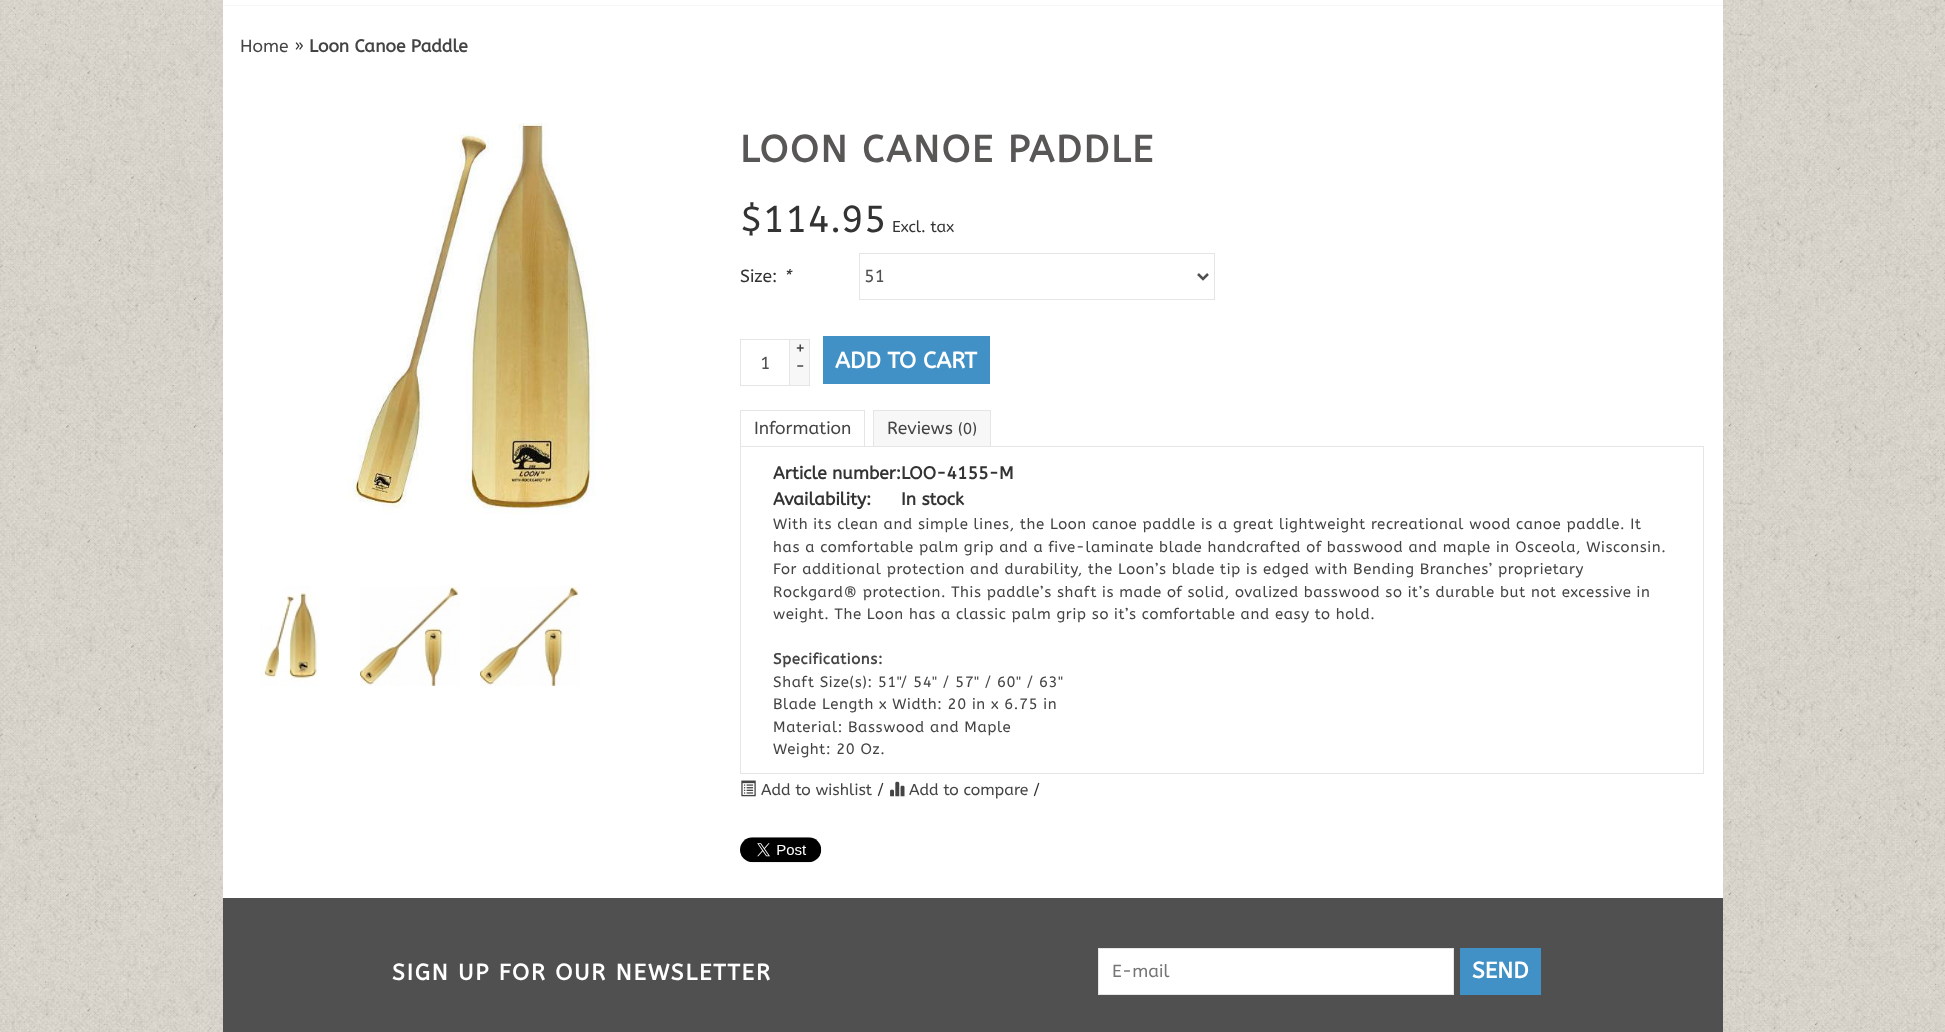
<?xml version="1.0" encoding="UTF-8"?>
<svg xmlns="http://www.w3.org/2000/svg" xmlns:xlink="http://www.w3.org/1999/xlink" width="1945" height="1032">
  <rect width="100%" height="100%" fill="#ffffff" />
  <image x="0" y="0" width="1945" height="1032" xlink:href="image1.png" />
  <rect x="223" width="1500" height="5" fill="#ffffff" />
  <rect x="223" y="5" width="1500" height="1" fill="#f7f7f7" />
  <rect x="223" y="6" width="1500" height="892" fill="#ffffff" />
  <image x="347" y="123" width="249" height="391" xlink:href="image2.png" />
  <image x="260" y="586" width="59" height="100" xlink:href="image3.png" />
  <image x="360" y="586" width="100" height="100" xlink:href="image4.png" />
  <image x="480" y="586" width="100" height="100" xlink:href="image5.png" />
  <rect x="859.5" y="253.5" width="355" height="46" fill="none" stroke="#e5e5e5" />
  <path d="M 1198 274 l 5 5 l 5 -5" fill="none" stroke="#515050" stroke-width="2.5" />
  <rect x="740.5" y="339.5" width="49" height="46" fill="none" stroke="#e5e5e5" />
  <rect x="790" y="340" width="19" height="45" fill="#f7f7f7" />
  <rect x="790" y="339" width="20" height="1" fill="#e5e5e5" />
  <rect x="809" y="339" width="1" height="47" fill="#e5e5e5" />
  <rect x="790" y="385" width="20" height="1" fill="#e5e5e5" />
  <rect x="823" y="336" width="167" height="48" fill="#4191c7" />
  <rect x="740" y="410" width="125" height="1" fill="#e5e5e5" />
  <rect x="864" y="410" width="1" height="38" fill="#e5e5e5" />
  <rect x="740" y="410" width="1" height="38" fill="#e5e5e5" />
  <rect x="874" y="411" width="116" height="35" fill="#f7f7f7" />
  <rect x="873" y="410" width="118" height="1" fill="#e5e5e5" />
  <rect x="990" y="410" width="1" height="36" fill="#e5e5e5" />
  <rect x="873" y="410" width="1" height="36" fill="#e5e5e5" />
  <rect x="864" y="447" width="1" height="1" fill="#ffffff" />
  <rect x="740.5" y="446.5" width="963" height="327" fill="none" stroke="#e5e5e5" />
  <image x="741" y="780" width="15" height="17" xlink:href="image6.png" />
  <image x="890" y="781" width="15" height="16" xlink:href="image7.png" />
  <image x="740" y="837" width="82" height="26" xlink:href="image8.png" />
  <rect x="223" y="898" width="1500" height="134" fill="#515050" />
  <rect x="1098.5" y="948.5" width="355" height="46" fill="#ffffff" stroke="#e5e5e5" />
  <rect x="1460" y="948" width="81" height="47" fill="#4191c7" />
  <text x="240" y="52" style="font-family: ABeeZee; font-size: 17.5px; fill: #444444">Home</text>
  <text x="294" y="52" style="font-family: ABeeZee; font-size: 17.5px; fill: #333333">»</text>
  <text x="309" y="52" style="font-family: ABeeZee; font-size: 17.5px; font-weight: bold; fill: #444444">Loon Canoe Paddle</text>
  <text x="740" y="162" style="font-family: ABeeZee; font-size: 37.5px; font-weight: bold; letter-spacing: 1.9px; fill: #595656">LOON CANOE PADDLE</text>
  <text x="740" y="232" style="font-family: ABeeZee; font-size: 37.5px; fill: #333333">$114.95</text>
  <text x="892" y="232" style="font-family: ABeeZee; font-size: 15.75px; fill: #333333">Excl. tax</text>
  <text x="740" y="282" style="font-family: ABeeZee; font-size: 17.5px; fill: #333333">Size:</text>
  <text x="783" y="282" style="font-family: ABeeZee; font-size: 17.5px; font-style: italic; fill: #333333">*</text>
  <text x="864" y="282" style="font-family: ABeeZee; font-size: 17.5px; fill: #515050">51</text>
  <text x="760" y="369" style="font-family: ABeeZee; font-size: 17.5px; fill: #515050">1</text>
  <text x="795" y="354" style="font-family: ABeeZee; font-size: 17.5px; fill: #444444">+</text>
  <text x="795" y="372" style="font-family: ABeeZee; font-size: 17.5px; fill: #444444">-</text>
  <text x="835" y="368" style="font-family: ABeeZee; font-size: 22.5px; font-weight: bold; fill: #ffffff">ADD TO CART</text>
  <text x="754" y="434" style="font-family: ABeeZee; font-size: 17.5px; fill: #444444">Information</text>
  <text x="887" y="434" style="font-family: ABeeZee; font-size: 17.5px; fill: #444444">Reviews</text>
  <text x="958" y="434" style="font-family: ABeeZee; font-size: 15.75px; fill: #444444">(0)</text>
  <text x="773" y="479" style="font-family: ABeeZee; font-size: 17.5px; font-weight: bold; fill: #333333">Article number:LOO-4155-M</text>
  <text x="773" y="505" style="font-family: ABeeZee; font-size: 17.5px; font-weight: bold; fill: #333333">Availability:</text>
  <text x="901" y="505" style="font-family: ABeeZee; font-size: 17.5px; font-weight: bold; fill: #333333">In stock</text>
  <text x="773" y="529" style="font-family: ABeeZee; font-size: 15px; letter-spacing: 0.62px; fill: #444444">With its clean and simple lines, the Loon canoe paddle is a great lightweight recreational wood canoe paddle. It</text>
  <text x="773" y="552" style="font-family: ABeeZee; font-size: 15px; letter-spacing: 0.62px; fill: #444444">has a comfortable palm grip and a five-laminate blade handcrafted of basswood and maple in Osceola, Wisconsin.</text>
  <text x="773" y="574" style="font-family: ABeeZee; font-size: 15px; letter-spacing: 0.62px; fill: #444444">For additional protection and durability, the Loon’s blade tip is edged with Bending Branches’ proprietary</text>
  <text x="773" y="597" style="font-family: ABeeZee; font-size: 15px; letter-spacing: 0.62px; fill: #444444">Rockgard® protection. This paddle’s shaft is made of solid, ovalized basswood so it’s durable but not excessive in</text>
  <text x="773" y="619" style="font-family: ABeeZee; font-size: 15px; letter-spacing: 0.62px; fill: #444444">weight. The Loon has a classic palm grip so it’s comfortable and easy to hold.</text>
  <text x="773" y="664" style="font-family: ABeeZee; font-size: 15px; font-weight: bold; letter-spacing: 0.62px; fill: #444444">Specifications:</text>
  <text x="773" y="687" style="font-family: ABeeZee; font-size: 15px; letter-spacing: 0.62px; fill: #444444">Shaft Size(s): 51"/ 54" / 57" / 60" / 63"</text>
  <text x="773" y="709" style="font-family: ABeeZee; font-size: 15px; letter-spacing: 0.62px; fill: #444444">Blade Length x Width: 20 in x 6.75 in</text>
  <text x="773" y="732" style="font-family: ABeeZee; font-size: 15px; letter-spacing: 0.62px; fill: #444444">Material: Basswood and Maple</text>
  <text x="773" y="754" style="font-family: ABeeZee; font-size: 15px; letter-spacing: 0.62px; fill: #444444">Weight: 20 Oz.</text>
  <text x="761" y="795" style="font-family: ABeeZee; font-size: 15.75px; fill: #444444">Add to wishlist</text>
  <text x="877" y="795" style="font-family: ABeeZee; font-size: 15.75px; fill: #333333">/</text>
  <text x="909" y="795" style="font-family: ABeeZee; font-size: 15.75px; fill: #444444">Add to compare</text>
  <text x="1033" y="795" style="font-family: ABeeZee; font-size: 15.75px; fill: #333333">/</text>
  <text x="392" y="980" style="font-family: ABeeZee; font-size: 22.5px; font-weight: bold; letter-spacing: 1.9px; fill: #ffffff">SIGN UP FOR OUR NEWSLETTER</text>
  <text x="1112" y="977" style="font-family: ABeeZee; font-size: 17.5px; fill: #757575">E-mail</text>
  <text x="1472" y="978" style="font-family: ABeeZee; font-size: 22.5px; font-weight: bold; fill: #ffffff">SEND</text>
</svg>
